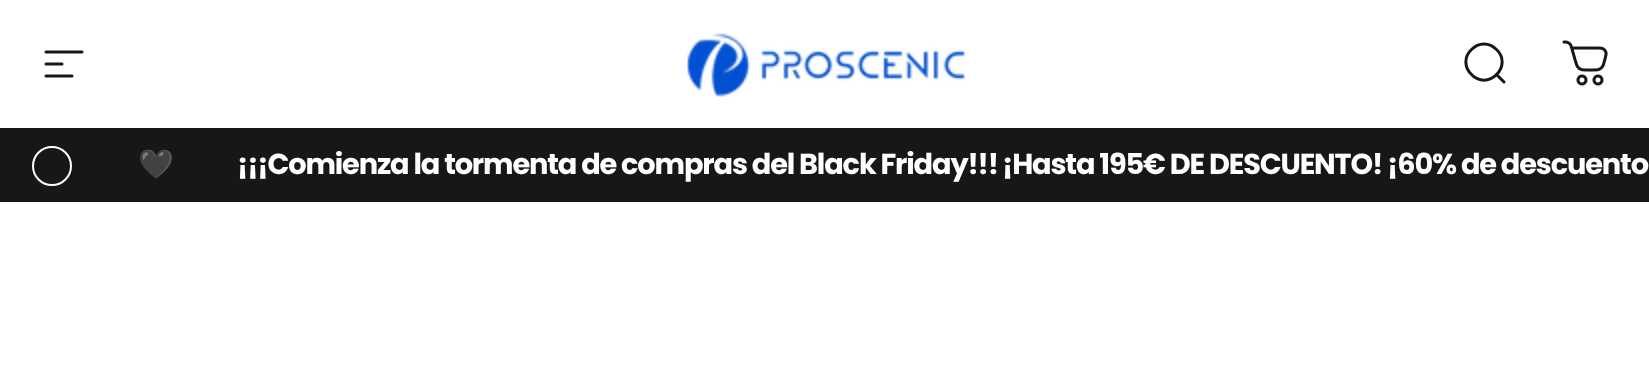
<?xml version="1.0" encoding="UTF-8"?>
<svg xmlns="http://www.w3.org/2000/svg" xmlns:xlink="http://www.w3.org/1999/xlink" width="1649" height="369">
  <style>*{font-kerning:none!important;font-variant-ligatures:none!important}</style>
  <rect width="100%" height="100%" fill="#ffffff" />
  <path d="M 46 52 h 36 m -36 12 h 16 m -16 12 h 26" fill="none" stroke="#171717" stroke-width="3" stroke-linecap="round" />
  <image x="686" y="33" width="280" height="64" xlink:href="image1.png" />
  <path d="M 1504 82 l -7.5 -7.5 m 0 0 c 7.5 -7 7.5 -18 0 -25 c -7 -7.5 -18 -7.5 -25 0 c -7.5 7 -7.5 18 0 25 c 7 7.5 18 7.5 25 0 z" fill="none" stroke="#171717" stroke-width="3" stroke-linecap="round" />
  <image x="1562" y="40" width="46" height="46" xlink:href="image2.png" />
  <rect y="128" width="1649" height="74" fill="#171717" />
  <circle cx="52" cy="166" r="19" fill="none" stroke="#ffffff" stroke-width="2" />
  <text x="138" y="174" style="font-family: Noto Color Emoji; font-size: 28.8px; letter-spacing: -1.15px; fill: #ffffff">🖤</text>
  <text x="237" y="174" style="font-family: Poppins; font-size: 28.8px; font-weight: bold; letter-spacing: -1.15px; fill: #ffffff">¡¡¡Comienza la tormenta de compras del Black Friday!!!</text>
  <text x="1002" y="174" style="font-family: Poppins; font-size: 28.8px; font-weight: bold; letter-spacing: -1.15px; fill: #ffffff">¡Hasta 195€ DE DESCUENTO! ¡60% de descuento</text>
</svg>
